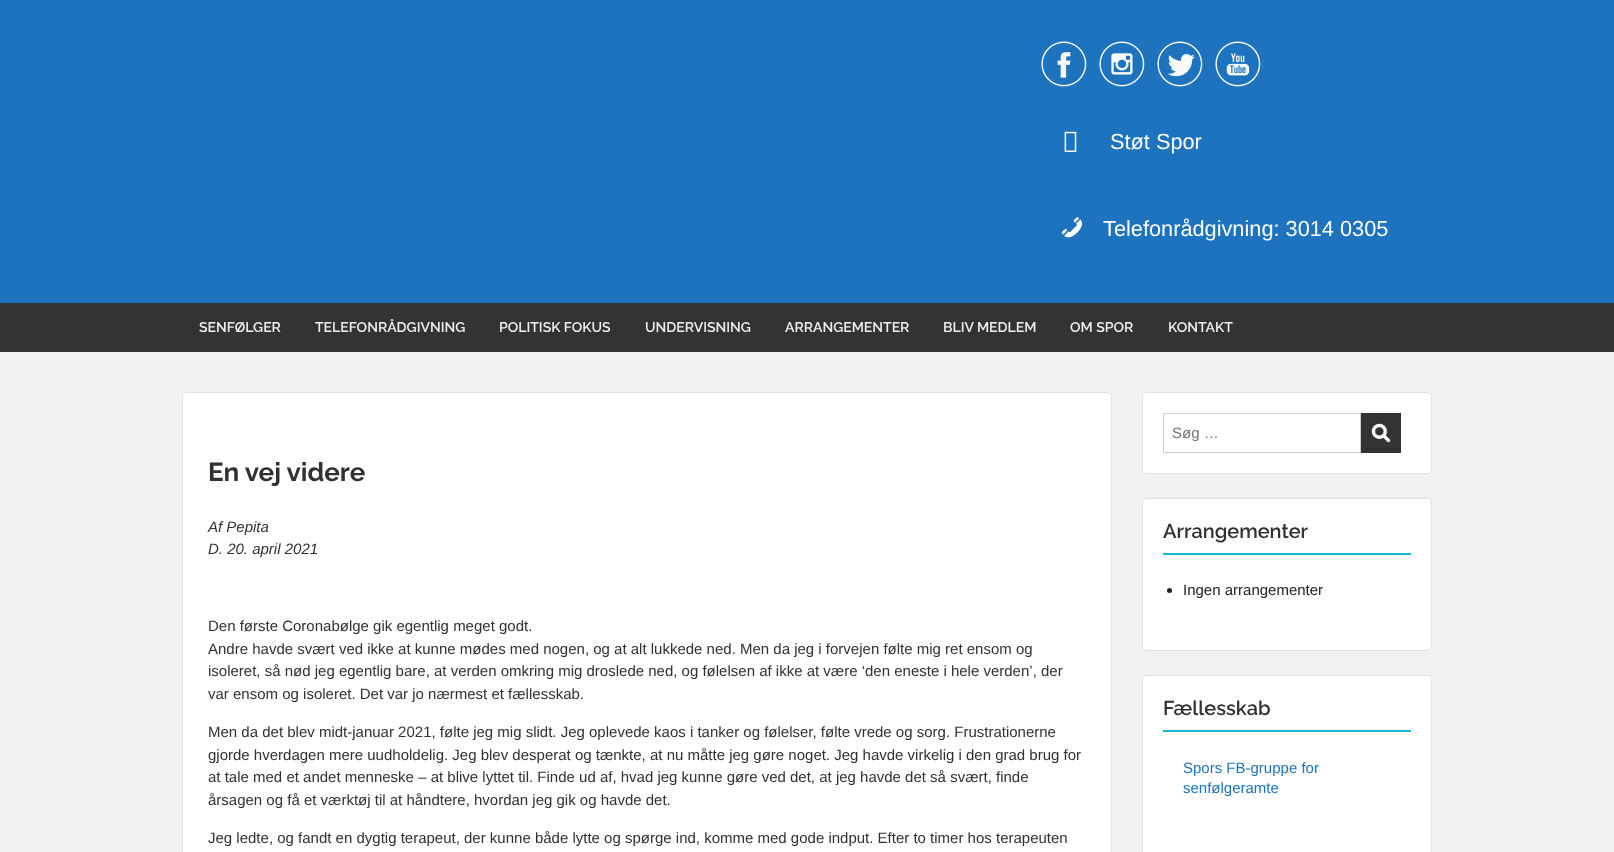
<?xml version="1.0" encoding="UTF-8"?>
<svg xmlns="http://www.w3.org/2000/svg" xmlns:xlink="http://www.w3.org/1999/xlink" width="1614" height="852">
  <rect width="100%" height="100%" fill="#f2f1f2" />
  <rect width="1614" height="303" fill="#1e73be" />
  <image x="1041" y="41" width="46" height="46" xlink:href="image1.png" />
  <image x="1099" y="41" width="46" height="46" xlink:href="image2.png" />
  <image x="1157" y="41" width="46" height="46" xlink:href="image3.png" />
  <image x="1215" y="41" width="46" height="46" xlink:href="image4.png" />
  <image x="1064" y="131" width="13" height="21" xlink:href="image5.png" />
  <image x="1062" y="217" width="21" height="21" xlink:href="image6.png" />
  <rect y="303" width="1614" height="49" fill="#333333" />
  <rect x="182" y="392" width="930" height="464" rx="4" fill="#ffffff" />
  <rect x="182.5" y="392.5" width="929" height="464" rx="3.5" fill="none" stroke="#000000" stroke-opacity="0.12" />
  <rect x="1142" y="392" width="290" height="82" rx="4" fill="#ffffff" />
  <rect x="1142.5" y="392.5" width="289" height="81" rx="3.5" fill="none" stroke="#000000" stroke-opacity="0.12" />
  <rect x="1163.5" y="413.5" width="197" height="39" fill="none" stroke="#cccccc" />
  <rect x="1361" y="413" width="40" height="40" fill="#333333" />
  <image x="1371" y="423" width="20" height="20" xlink:href="image7.png" />
  <rect x="1142" y="498" width="290" height="153" rx="4" fill="#ffffff" />
  <rect x="1142.5" y="498.5" width="289" height="152" rx="3.5" fill="none" stroke="#000000" stroke-opacity="0.12" />
  <rect x="1163" y="553" width="248" height="2" fill="#14b9d5" />
  <circle cx="1169.5" cy="590.5" r="2.5" fill="#212121" />
  <rect x="1142" y="675" width="290" height="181" rx="4" fill="#ffffff" />
  <rect x="1142.5" y="675.5" width="289" height="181" rx="3.5" fill="none" stroke="#000000" stroke-opacity="0.12" />
  <rect x="1163" y="730" width="248" height="2" fill="#14b9d5" />
  <text x="1110" y="149" style="font-family: Liberation Sans; font-size: 21.75px; fill: #ffffff">Støt Spor</text>
  <text x="1103" y="236" style="font-family: Liberation Sans; font-size: 21.75px; fill: #ffffff">Telefonrådgivning: 3014 0305</text>
  <text x="199" y="332" style="font-family: Raleway; font-size: 14px; font-weight: 600; fill: #efefef">SENFØLGER</text>
  <text x="315" y="332" style="font-family: Raleway; font-size: 14px; font-weight: 600; fill: #efefef">TELEFONRÅDGIVNING</text>
  <text x="499" y="332" style="font-family: Raleway; font-size: 14px; font-weight: 600; fill: #efefef">POLITISK FOKUS</text>
  <text x="645" y="332" style="font-family: Raleway; font-size: 14px; font-weight: 600; fill: #efefef">UNDERVISNING</text>
  <text x="785" y="332" style="font-family: Raleway; font-size: 14px; font-weight: 600; fill: #efefef">ARRANGEMENTER</text>
  <text x="943" y="332" style="font-family: Raleway; font-size: 14px; font-weight: 600; fill: #efefef">BLIV MEDLEM</text>
  <text x="1070" y="332" style="font-family: Raleway; font-size: 14px; font-weight: 600; fill: #efefef">OM SPOR</text>
  <text x="1168" y="332" style="font-family: Raleway; font-size: 14px; font-weight: 600; fill: #efefef">KONTAKT</text>
  <text x="208" y="481" style="font-family: Raleway; font-size: 26px; font-weight: bold; fill: #313131">En vej videre</text>
  <text x="208" y="532" style="font-family: Liberation Sans; font-size: 15px; font-style: italic; fill: #313131">Af Pepita</text>
  <text x="208" y="554" style="font-family: Liberation Sans; font-size: 15px; font-style: italic; fill: #313131">D. 20. april 2021</text>
  <text x="208" y="631" style="font-family: Liberation Sans; font-size: 15px; fill: #313131">Den første Coronabølge gik egentlig meget godt.</text>
  <text x="208" y="654" style="font-family: Liberation Sans; font-size: 15px; fill: #313131">Andre havde svært ved ikke at kunne mødes med nogen, og at alt lukkede ned. Men da jeg i forvejen følte mig ret ensom og</text>
  <text x="208" y="676" style="font-family: Liberation Sans; font-size: 15px; fill: #313131">isoleret, så nød jeg egentlig bare, at verden omkring mig droslede ned, og følelsen af ikke at være ‘den eneste i hele verden’, der</text>
  <text x="208" y="699" style="font-family: Liberation Sans; font-size: 15px; fill: #313131">var ensom og isoleret. Det var jo nærmest et fællesskab.</text>
  <text x="208" y="737" style="font-family: Liberation Sans; font-size: 15px; fill: #313131">Men da det blev midt-januar 2021, følte jeg mig slidt. Jeg oplevede kaos i tanker og følelser, følte vrede og sorg. Frustrationerne</text>
  <text x="208" y="760" style="font-family: Liberation Sans; font-size: 15px; fill: #313131">gjorde hverdagen mere uudholdelig. Jeg blev desperat og tænkte, at nu måtte jeg gøre noget. Jeg havde virkelig i den grad brug for</text>
  <text x="208" y="782" style="font-family: Liberation Sans; font-size: 15px; fill: #313131">at tale med et andet menneske – at blive lyttet til. Finde ud af, hvad jeg kunne gøre ved det, at jeg havde det så svært, finde</text>
  <text x="208" y="805" style="font-family: Liberation Sans; font-size: 15px; fill: #313131">årsagen og få et værktøj til at håndtere, hvordan jeg gik og havde det.</text>
  <text x="208" y="843" style="font-family: Liberation Sans; font-size: 15px; fill: #313131">Jeg ledte, og fandt en dygtig terapeut, der kunne både lytte og spørge ind, komme med gode indput. Efter to timer hos terapeuten</text>
  <text x="1172" y="438" style="font-family: Liberation Sans; font-size: 15px; fill: #757575">Søg …</text>
  <text x="1163" y="538" style="font-family: Raleway; font-size: 20px; font-weight: 600; fill: #313131">Arrangementer</text>
  <text x="1183" y="595" style="font-family: Liberation Sans; font-size: 15px; fill: #212121">Ingen arrangementer</text>
  <text x="1163" y="715" style="font-family: Raleway; font-size: 20px; font-weight: 600; fill: #313131">Fællesskab</text>
  <text x="1183" y="773" style="font-family: Liberation Sans; font-size: 15px; fill: #1e73be">Spors FB-gruppe for</text>
  <text x="1183" y="793" style="font-family: Liberation Sans; font-size: 15px; fill: #1e73be">senfølgeramte</text>
</svg>
